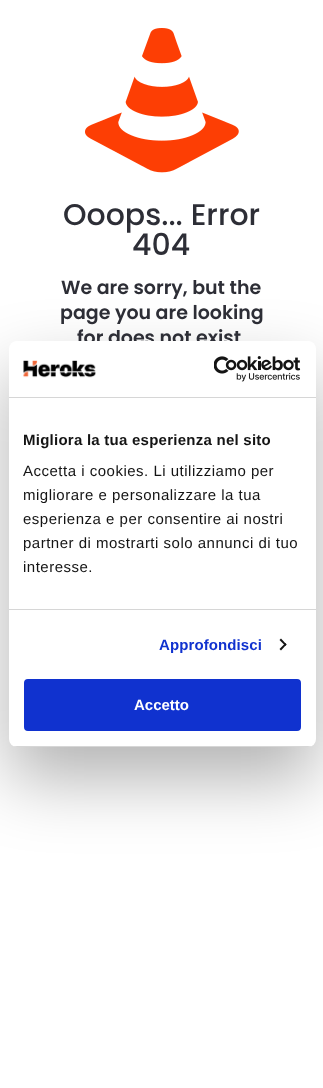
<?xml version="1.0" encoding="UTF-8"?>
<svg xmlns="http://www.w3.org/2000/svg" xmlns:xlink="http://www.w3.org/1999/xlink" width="323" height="1088">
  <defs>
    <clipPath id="clip1"><rect x="9" y="341" width="307" height="406" rx="8" /></clipPath>
  </defs>
  <rect width="100%" height="100%" fill="#ffffff" />
  <image x="85" y="28" width="154" height="145" xlink:href="image1.png" />
  <rect x="9" y="373" width="307" height="406" rx="8" fill="#000000" fill-opacity="0.3" filter="blur(34px)" />
  <text x="63" y="225" style="font-family: Poppins; font-size: 30px; font-weight: 500; fill: #2d2e36">Ooops... Error</text>
  <text x="132" y="255" style="font-family: Poppins; font-size: 30px; font-weight: 500; fill: #2d2e36">404</text>
  <text x="61" y="294" style="font-family: Poppins; font-size: 19px; font-weight: 600; fill: #2d2e36">We are sorry, but the</text>
  <text x="60" y="319" style="font-family: Poppins; font-size: 19px; font-weight: 600; fill: #2d2e36">page you are looking</text>
  <text x="77" y="344" style="font-family: Poppins; font-size: 19px; font-weight: 600; fill: #2d2e36">for does not exist</text>
  <rect x="9" y="341" width="307" height="406" rx="8" fill="#ffffff" />
  <rect x="9" y="397" width="307" height="1" fill="#d6d6d6" />
  <image x="23" y="360" width="73" height="18" xlink:href="image2.png" />
  <image x="214" y="356" width="87" height="26" xlink:href="image3.png" />
  <rect x="9" y="609" width="307" height="1" fill="#d6d6d6" />
  <text x="23" y="445" style="font-family: Liberation Sans; font-size: 15px; font-weight: bold; letter-spacing: 0.25px; fill: #141414">Migliora la tua esperienza nel sito</text>
  <text x="23" y="476" style="font-family: Liberation Sans; font-size: 15px; letter-spacing: 0.5px; fill: #141414">Accetta i cookies. Li utilizziamo per</text>
  <text x="23" y="500" style="font-family: Liberation Sans; font-size: 15px; letter-spacing: 0.5px; fill: #141414">migliorare e personalizzare la tua</text>
  <text x="23" y="524" style="font-family: Liberation Sans; font-size: 15px; letter-spacing: 0.5px; fill: #141414">esperienza e per consentire ai nostri</text>
  <text x="23" y="548" style="font-family: Liberation Sans; font-size: 15px; letter-spacing: 0.5px; fill: #141414">partner di mostrarti solo annunci di tuo</text>
  <text x="23" y="572" style="font-family: Liberation Sans; font-size: 15px; letter-spacing: 0.5px; fill: #141414">interesse.</text>
  <text x="159" y="650" style="font-family: Liberation Sans; font-size: 15px; font-weight: bold; letter-spacing: 0.1px; fill: #1032cf">Approfondisci</text>
  <path d="M 281 638.5 l 5.5 6 l -1 1.5 l -6 -6 z" fill="#141414" />
  <path d="M 285.5 643 l 1 1.5 l -5.5 6 l -1.5 -1.5 z" fill="#141414" />
  <g clip-path="url(#clip1)">
    <rect x="9" y="746" width="307" height="1" fill="#d6d6d6" />
  </g>
  <rect x="25" y="680" width="275" height="50" rx="3" fill="#1032cf" stroke="#1032cf" stroke-width="2" />
  <text x="134" y="710" style="font-family: Liberation Sans; font-size: 15px; font-weight: bold; fill: #ffffff">Accetto</text>
</svg>
